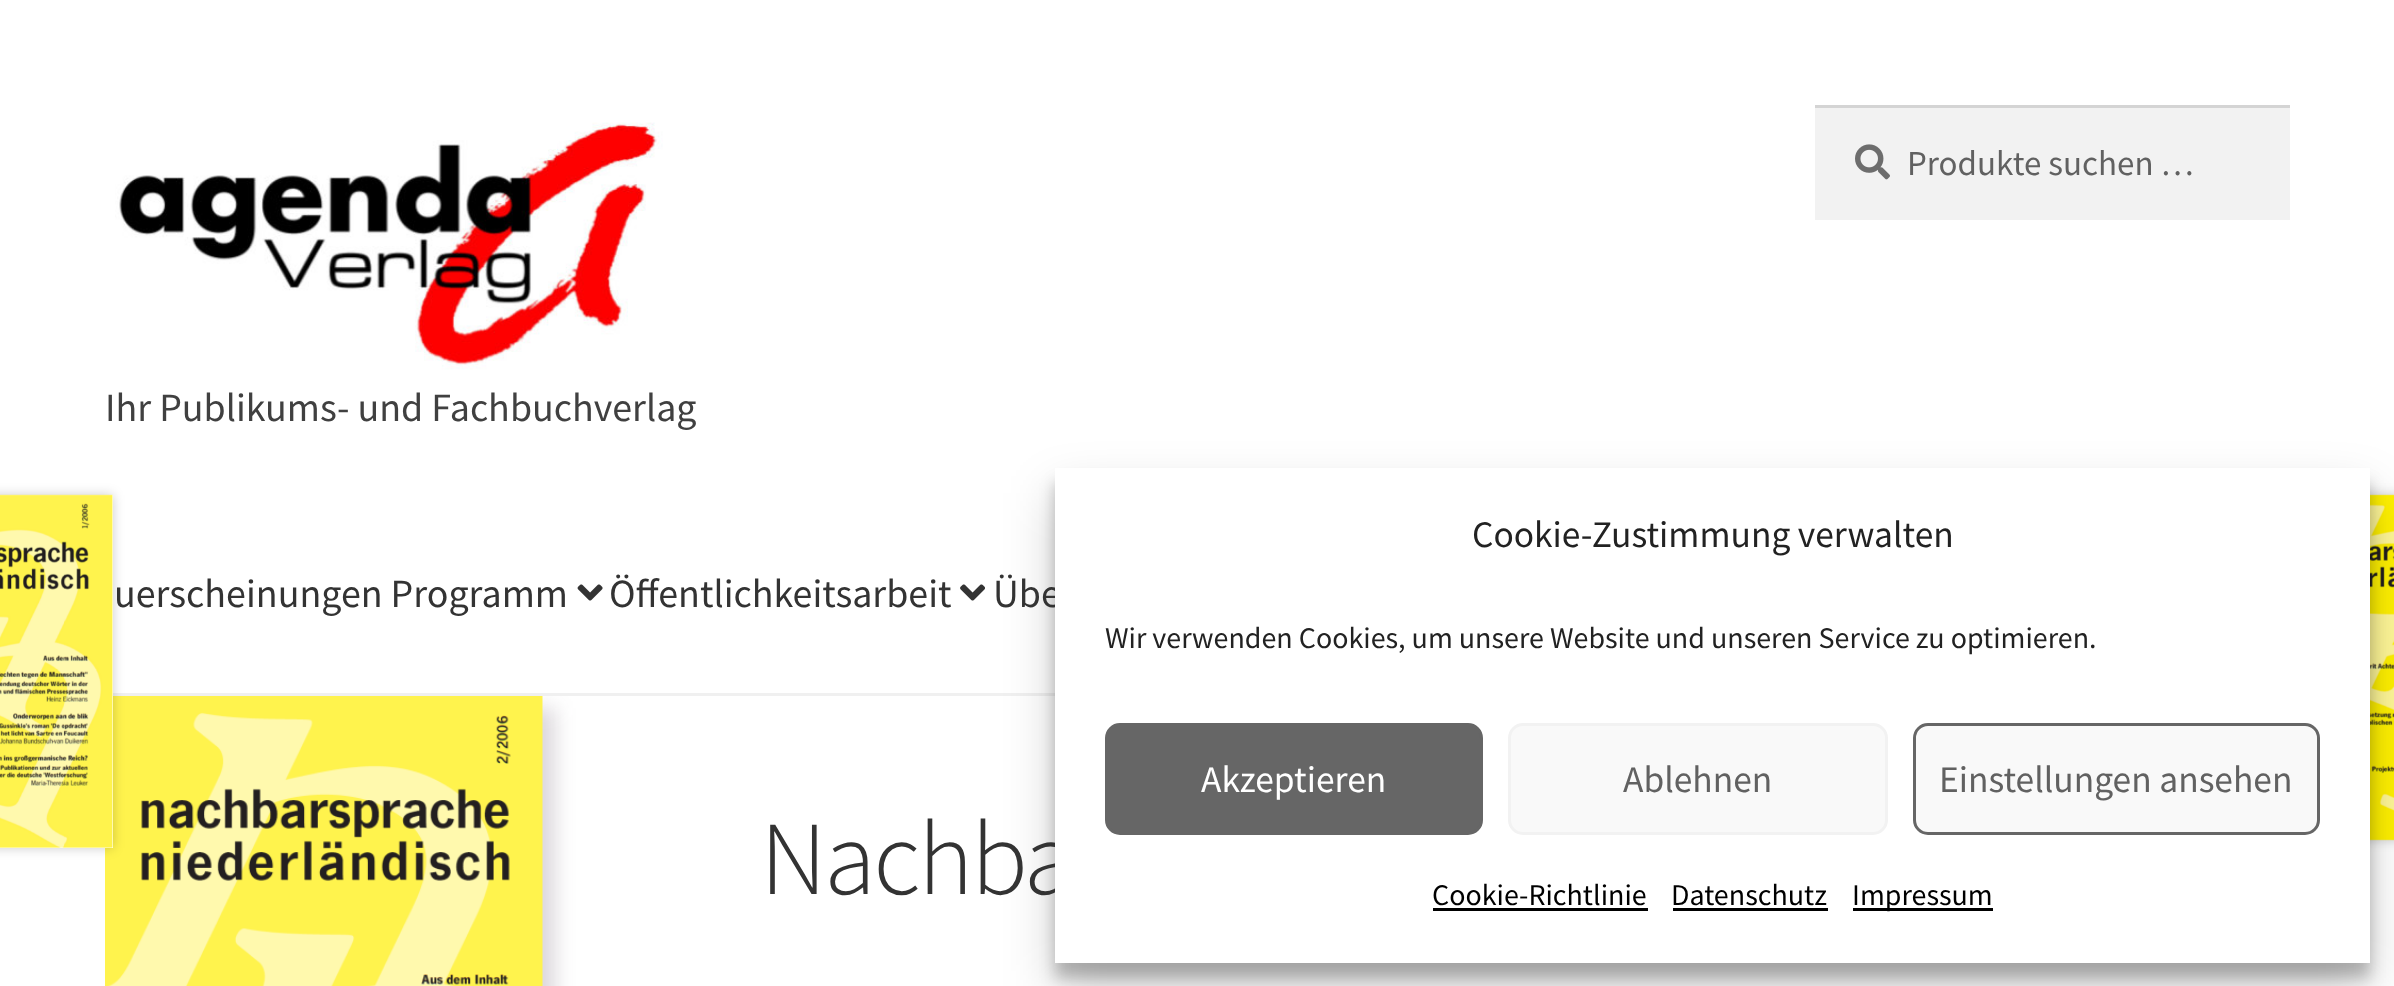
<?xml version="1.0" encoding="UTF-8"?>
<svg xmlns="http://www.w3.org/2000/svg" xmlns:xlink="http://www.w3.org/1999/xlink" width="2394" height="986">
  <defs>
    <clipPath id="clip1"><rect x="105" y="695" width="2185" height="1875" /></clipPath>
  </defs>
  <rect width="100%" height="100%" fill="#ffffff" />
  <g clip-path="url(#clip1)">
    <rect x="118" y="708" width="437" height="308" fill="#493649" fill-opacity="0.2" filter="blur(10px)" />
  </g>
  <rect x="113" y="693" width="942" height="3" fill="#f0f0f0" />
  <rect x="1815" y="108" width="475" height="112" fill="#f2f2f2" />
  <image x="1855" y="144" width="35" height="36" xlink:href="image1.png" />
  <rect x="1815" y="105" width="475" height="3" fill="#d4d4d4" />
  <image x="115" y="122" width="548" height="248" xlink:href="image2.png" />
  <image x="577" y="584" width="26" height="17" xlink:href="image3.png" />
  <image x="960" y="584" width="25" height="17" xlink:href="image4.png" />
  <image x="105" y="696" width="438" height="290" xlink:href="image7.png" />
  <rect x="-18" y="495" width="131" height="353" fill="#000000" fill-opacity="0.2" filter="blur(6px)" />
  <rect y="495" width="113" height="353" fill="#ffffff" />
  <image x="0" y="494" width="113" height="354" xlink:href="image5.png" />
  <rect x="2283" y="495" width="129" height="345" fill="#000000" fill-opacity="0.2" filter="blur(6px)" />
  <image x="2370" y="494" width="24" height="347" xlink:href="image6.png" />
  <rect x="1055" y="483" width="1315" height="495" fill="#000000" fill-opacity="0.23" filter="blur(7.5px)" />
  <rect x="1055" y="493" width="1315" height="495" fill="#000000" fill-opacity="0.19" filter="blur(25px)" />
  <text x="1907" y="175" style="font-family: Source Sans Pro; font-size: 35px; fill: #616161">Produkte suchen …</text>
  <text x="105" y="421" style="font-family: Source Sans Pro; font-size: 40px; fill: #404040">Ihr Publikums- und Fachbuchverlag</text>
  <text x="114" y="607" style="font-family: Source Sans Pro; font-size: 40px; fill: #333333">uerscheinungen Programm</text>
  <text x="609" y="607" style="font-family: Source Sans Pro; font-size: 40px; fill: #333333">Öffentlichkeitsarbeit</text>
  <text x="993" y="607" style="font-family: Source Sans Pro; font-size: 40px; fill: #333333">Übe</text>
  <text x="760" y="894" style="font-family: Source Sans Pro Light; font-size: 105px; font-weight: 300; letter-spacing: -2.5px; fill: #333333">Nachba</text>
  <rect x="1055" y="468" width="1315" height="495" fill="#ffffff" />
  <text x="1472" y="547" style="font-family: Source Sans Pro; font-size: 37.5px; fill: #222222">Cookie-Zustimmung verwalten</text>
  <text x="1105" y="648" style="font-family: Source Sans Pro; font-size: 30px; fill: #222222">Wir verwenden Cookies, um unsere Website und unseren Service zu optimieren.</text>
  <rect x="1106.5" y="724.5" width="375" height="109" rx="13.5" fill="#666666" stroke="#666666" stroke-width="3" />
  <text x="1201" y="792" style="font-family: Source Sans Pro; font-size: 37.5px; fill: #ffffff">Akzeptieren</text>
  <rect x="1509.5" y="724.5" width="377" height="109" rx="13.5" fill="#f9f9f9" stroke="#f2f2f2" stroke-width="3" />
  <text x="1623" y="792" style="font-family: Source Sans Pro; font-size: 37.5px; fill: #616161">Ablehnen</text>
  <rect x="1914.5" y="724.5" width="404" height="109" rx="13.5" fill="#f9f9f9" stroke="#666666" stroke-width="3" />
  <text x="1939" y="792" style="font-family: Source Sans Pro; font-size: 37.5px; fill: #616161">Einstellungen ansehen</text>
  <text x="1432" y="905" style="font-family: Source Sans Pro; font-size: 30px; fill: #000000">Cookie-Richtlinie</text>
  <rect x="1433" y="908" width="215" height="3" fill="#000000" />
  <text x="1671" y="905" style="font-family: Source Sans Pro; font-size: 30px; fill: #000000">Datenschutz</text>
  <rect x="1673" y="908" width="155" height="3" fill="#000000" />
  <rect x="1853" y="908" width="140" height="3" fill="#000000" />
  <text x="1852" y="905" style="font-family: Source Sans Pro; font-size: 30px; fill: #000000">Impressum</text>
</svg>
